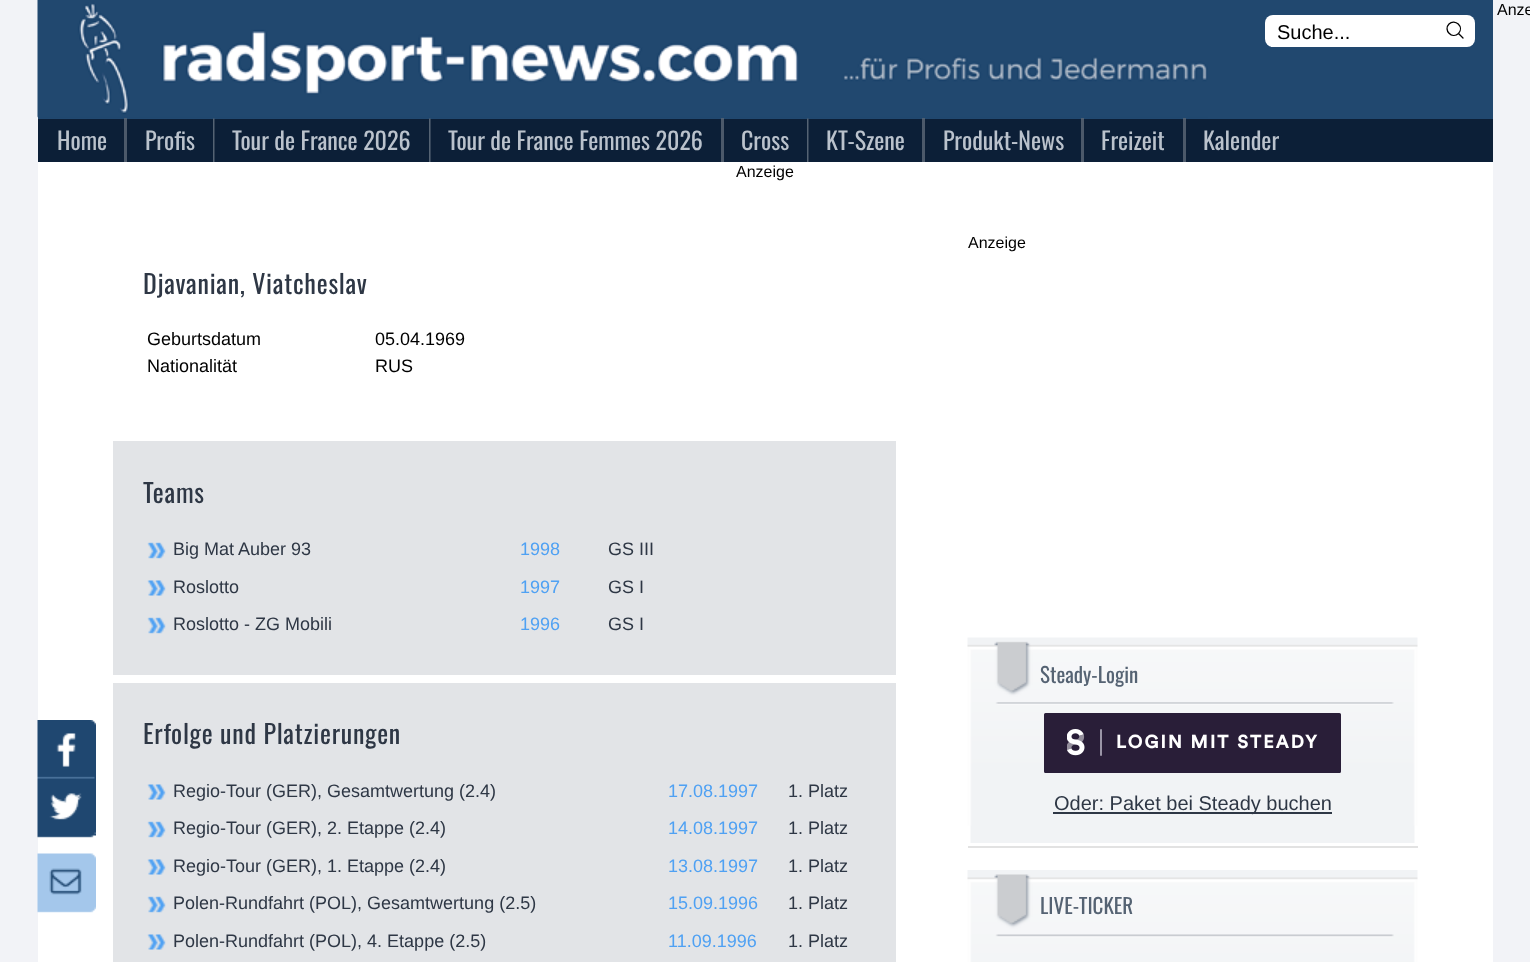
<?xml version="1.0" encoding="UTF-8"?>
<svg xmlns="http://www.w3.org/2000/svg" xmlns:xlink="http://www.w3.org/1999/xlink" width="1530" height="962">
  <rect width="100%" height="100%" fill="#f2f3f7" />
  <rect x="38" y="162" width="1455" height="800" fill="#ffffff" />
  <rect x="38" width="1455" height="119" fill="#21486f" />
  <rect x="1183" y="118" width="3" height="1" fill="#4e5f72" />
  <rect x="1081" y="118" width="3" height="1" fill="#4e5f72" />
  <rect x="922" y="118" width="3" height="1" fill="#4e5f72" />
  <rect x="721" y="118" width="3" height="1" fill="#4e5f72" />
  <rect x="124" y="118" width="3" height="1" fill="#4e5f72" />
  <image x="37" y="0" width="1171" height="118" xlink:href="image1.png" />
  <rect x="1265" y="15" width="210" height="32" rx="8" fill="#ffffff" />
  <path d="M 1463 38 l -4.5 -4.5 m 0 0 c 6 -6.5 -3.5 -15.5 -9.5 -9.5 c -6 6 3 15.5 9.5 9.5 z" fill="none" stroke="#000000" stroke-width="1.3" stroke-linecap="round" stroke-linejoin="round" />
  <rect x="38" y="119" width="1455" height="43" fill="#0c1f37" />
  <rect x="1183" y="119" width="3" height="43" fill="#4c596a" />
  <rect x="1081" y="119" width="3" height="43" fill="#4c596a" />
  <rect x="922" y="119" width="3" height="43" fill="#4c596a" />
  <rect x="721" y="119" width="3" height="43" fill="#4c596a" />
  <rect x="124" y="119" width="3" height="43" fill="#4c596a" />
  <image x="213" y="118" width="2" height="44" xlink:href="image2.png" />
  <image x="429" y="118" width="2" height="44" xlink:href="image3.png" />
  <image x="807" y="118" width="2" height="44" xlink:href="image2.png" />
  <rect x="113" y="441" width="783" height="234" fill="#e2e4e7" />
  <image x="147" y="542" width="19" height="17" xlink:href="image4.png" />
  <image x="147" y="580" width="19" height="16" xlink:href="image5.png" />
  <image x="147" y="617" width="19" height="17" xlink:href="image4.png" />
  <rect x="113" y="683" width="783" height="279" fill="#e2e4e7" />
  <image x="147" y="784" width="19" height="16" xlink:href="image6.png" />
  <image x="147" y="821" width="19" height="17" xlink:href="image7.png" />
  <image x="147" y="859" width="19" height="16" xlink:href="image6.png" />
  <image x="147" y="896" width="19" height="17" xlink:href="image7.png" />
  <image x="147" y="934" width="19" height="16" xlink:href="image6.png" />
  <image x="967" y="637" width="451" height="211" xlink:href="image8.png" />
  <rect x="968" y="846" width="450" height="2" fill="#e2e2e2" />
  <rect x="968" y="843" width="450" height="3" fill="#ffffff" />
  <rect x="1045" y="714" width="295" height="58" rx="0.5" fill="#291e38" stroke="#291e38" stroke-width="2" />
  <image x="1067" y="729" width="18" height="27" xlink:href="image9.png" />
  <rect x="1100" y="729" width="2" height="27" rx="1" fill="#9a95a6" />
  <rect x="1053" y="812" width="279" height="2" fill="#2e3745" />
  <image x="967" y="870" width="451" height="92" xlink:href="image10.png" />
  <image x="37" y="720" width="59" height="193" xlink:href="image11.png" />
  <text x="1497" y="15" style="font-family: Liberation Sans; font-size: 16px; fill: #000000">Anze</text>
  <text x="1277" y="39" style="font-family: Liberation Sans; font-size: 20px; fill: #000000">Suche...</text>
  <text x="57" y="150" style="font-family: Oswald; font-size: 24px; fill: #bac2cc">Home</text>
  <text x="145" y="150" style="font-family: Oswald; font-size: 24px; fill: #bac2cc">Profis</text>
  <text x="232" y="150" style="font-family: Oswald; font-size: 24px; fill: #bac2cc">Tour de France 2026</text>
  <text x="448" y="150" style="font-family: Oswald; font-size: 24px; fill: #bac2cc">Tour de France Femmes 2026</text>
  <text x="741" y="150" style="font-family: Oswald; font-size: 24px; fill: #bac2cc">Cross</text>
  <text x="826" y="150" style="font-family: Oswald; font-size: 24px; fill: #bac2cc">KT-Szene</text>
  <text x="943" y="150" style="font-family: Oswald; font-size: 24px; fill: #bac2cc">Produkt-News</text>
  <text x="1101" y="150" style="font-family: Oswald; font-size: 24px; fill: #bac2cc">Freizeit</text>
  <text x="1203" y="150" style="font-family: Oswald; font-size: 24px; fill: #bac2cc">Kalender</text>
  <text x="736" y="177" style="font-family: Liberation Sans; font-size: 16px; fill: #000000">Anzeige</text>
  <text x="143" y="294" style="font-family: Oswald; font-size: 26px; letter-spacing: 0.75px; fill: #2e3745">Djavanian, Viatcheslav</text>
  <text x="147" y="345" style="font-family: Liberation Sans; font-size: 18px; fill: #000000">Geburtsdatum</text>
  <text x="375" y="345" style="font-family: Liberation Sans; font-size: 18px; fill: #000000">05.04.1969</text>
  <text x="147" y="372" style="font-family: Liberation Sans; font-size: 18px; fill: #000000">Nationalität</text>
  <text x="375" y="372" style="font-family: Liberation Sans; font-size: 18px; fill: #000000">RUS</text>
  <text x="143" y="503" style="font-family: Oswald; font-size: 26px; letter-spacing: 0.75px; fill: #2e3745">Teams</text>
  <text x="173" y="555" style="font-family: Liberation Sans; font-size: 18px; fill: #2e3745">Big Mat Auber 93</text>
  <text x="520" y="555" style="font-family: Liberation Sans; font-size: 18px; fill: #4fa1f3">1998</text>
  <text x="608" y="555" style="font-family: Liberation Sans; font-size: 18px; fill: #2e3745">GS III</text>
  <text x="173" y="593" style="font-family: Liberation Sans; font-size: 18px; fill: #2e3745">Roslotto</text>
  <text x="520" y="593" style="font-family: Liberation Sans; font-size: 18px; fill: #4fa1f3">1997</text>
  <text x="608" y="593" style="font-family: Liberation Sans; font-size: 18px; fill: #2e3745">GS I</text>
  <text x="173" y="630" style="font-family: Liberation Sans; font-size: 18px; fill: #2e3745">Roslotto - ZG Mobili</text>
  <text x="520" y="630" style="font-family: Liberation Sans; font-size: 18px; fill: #4fa1f3">1996</text>
  <text x="608" y="630" style="font-family: Liberation Sans; font-size: 18px; fill: #2e3745">GS I</text>
  <text x="143" y="744" style="font-family: Oswald; font-size: 26px; letter-spacing: 0.75px; fill: #2e3745">Erfolge und Platzierungen</text>
  <text x="173" y="797" style="font-family: Liberation Sans; font-size: 18px; fill: #2e3745">Regio-Tour (GER), Gesamtwertung (2.4)</text>
  <text x="668" y="797" style="font-family: Liberation Sans; font-size: 18px; fill: #4fa1f3">17.08.1997</text>
  <text x="788" y="797" style="font-family: Liberation Sans; font-size: 18px; fill: #2e3745">1. Platz</text>
  <text x="173" y="834" style="font-family: Liberation Sans; font-size: 18px; fill: #2e3745">Regio-Tour (GER), 2. Etappe (2.4)</text>
  <text x="668" y="834" style="font-family: Liberation Sans; font-size: 18px; fill: #4fa1f3">14.08.1997</text>
  <text x="788" y="834" style="font-family: Liberation Sans; font-size: 18px; fill: #2e3745">1. Platz</text>
  <text x="173" y="872" style="font-family: Liberation Sans; font-size: 18px; fill: #2e3745">Regio-Tour (GER), 1. Etappe (2.4)</text>
  <text x="668" y="872" style="font-family: Liberation Sans; font-size: 18px; fill: #4fa1f3">13.08.1997</text>
  <text x="788" y="872" style="font-family: Liberation Sans; font-size: 18px; fill: #2e3745">1. Platz</text>
  <text x="173" y="909" style="font-family: Liberation Sans; font-size: 18px; fill: #2e3745">Polen-Rundfahrt (POL), Gesamtwertung (2.5)</text>
  <text x="668" y="909" style="font-family: Liberation Sans; font-size: 18px; fill: #4fa1f3">15.09.1996</text>
  <text x="788" y="909" style="font-family: Liberation Sans; font-size: 18px; fill: #2e3745">1. Platz</text>
  <text x="173" y="947" style="font-family: Liberation Sans; font-size: 18px; fill: #2e3745">Polen-Rundfahrt (POL), 4. Etappe (2.5)</text>
  <text x="668" y="947" style="font-family: Liberation Sans; font-size: 18px; fill: #4fa1f3">11.09.1996</text>
  <text x="788" y="947" style="font-family: Liberation Sans; font-size: 18px; fill: #2e3745">1. Platz</text>
  <text x="968" y="248" style="font-family: Liberation Sans; font-size: 16px; fill: #000000">Anzeige</text>
  <text x="1040" y="683" style="font-family: Oswald; font-size: 21px; fill: #556373">Steady-Login</text>
  <text x="1116" y="748" style="font-family: Circular; font-size: 18px; font-weight: bold; letter-spacing: 2.2px; fill: #ffffff">LOGIN MIT STEADY</text>
  <text x="1054" y="810" style="font-family: Liberation Sans; font-size: 20px; fill: #2e3745">Oder: Paket bei Steady buchen</text>
  <text x="1040" y="914" style="font-family: Oswald; font-size: 21px; fill: #556373">LIVE-TICKER</text>
</svg>
